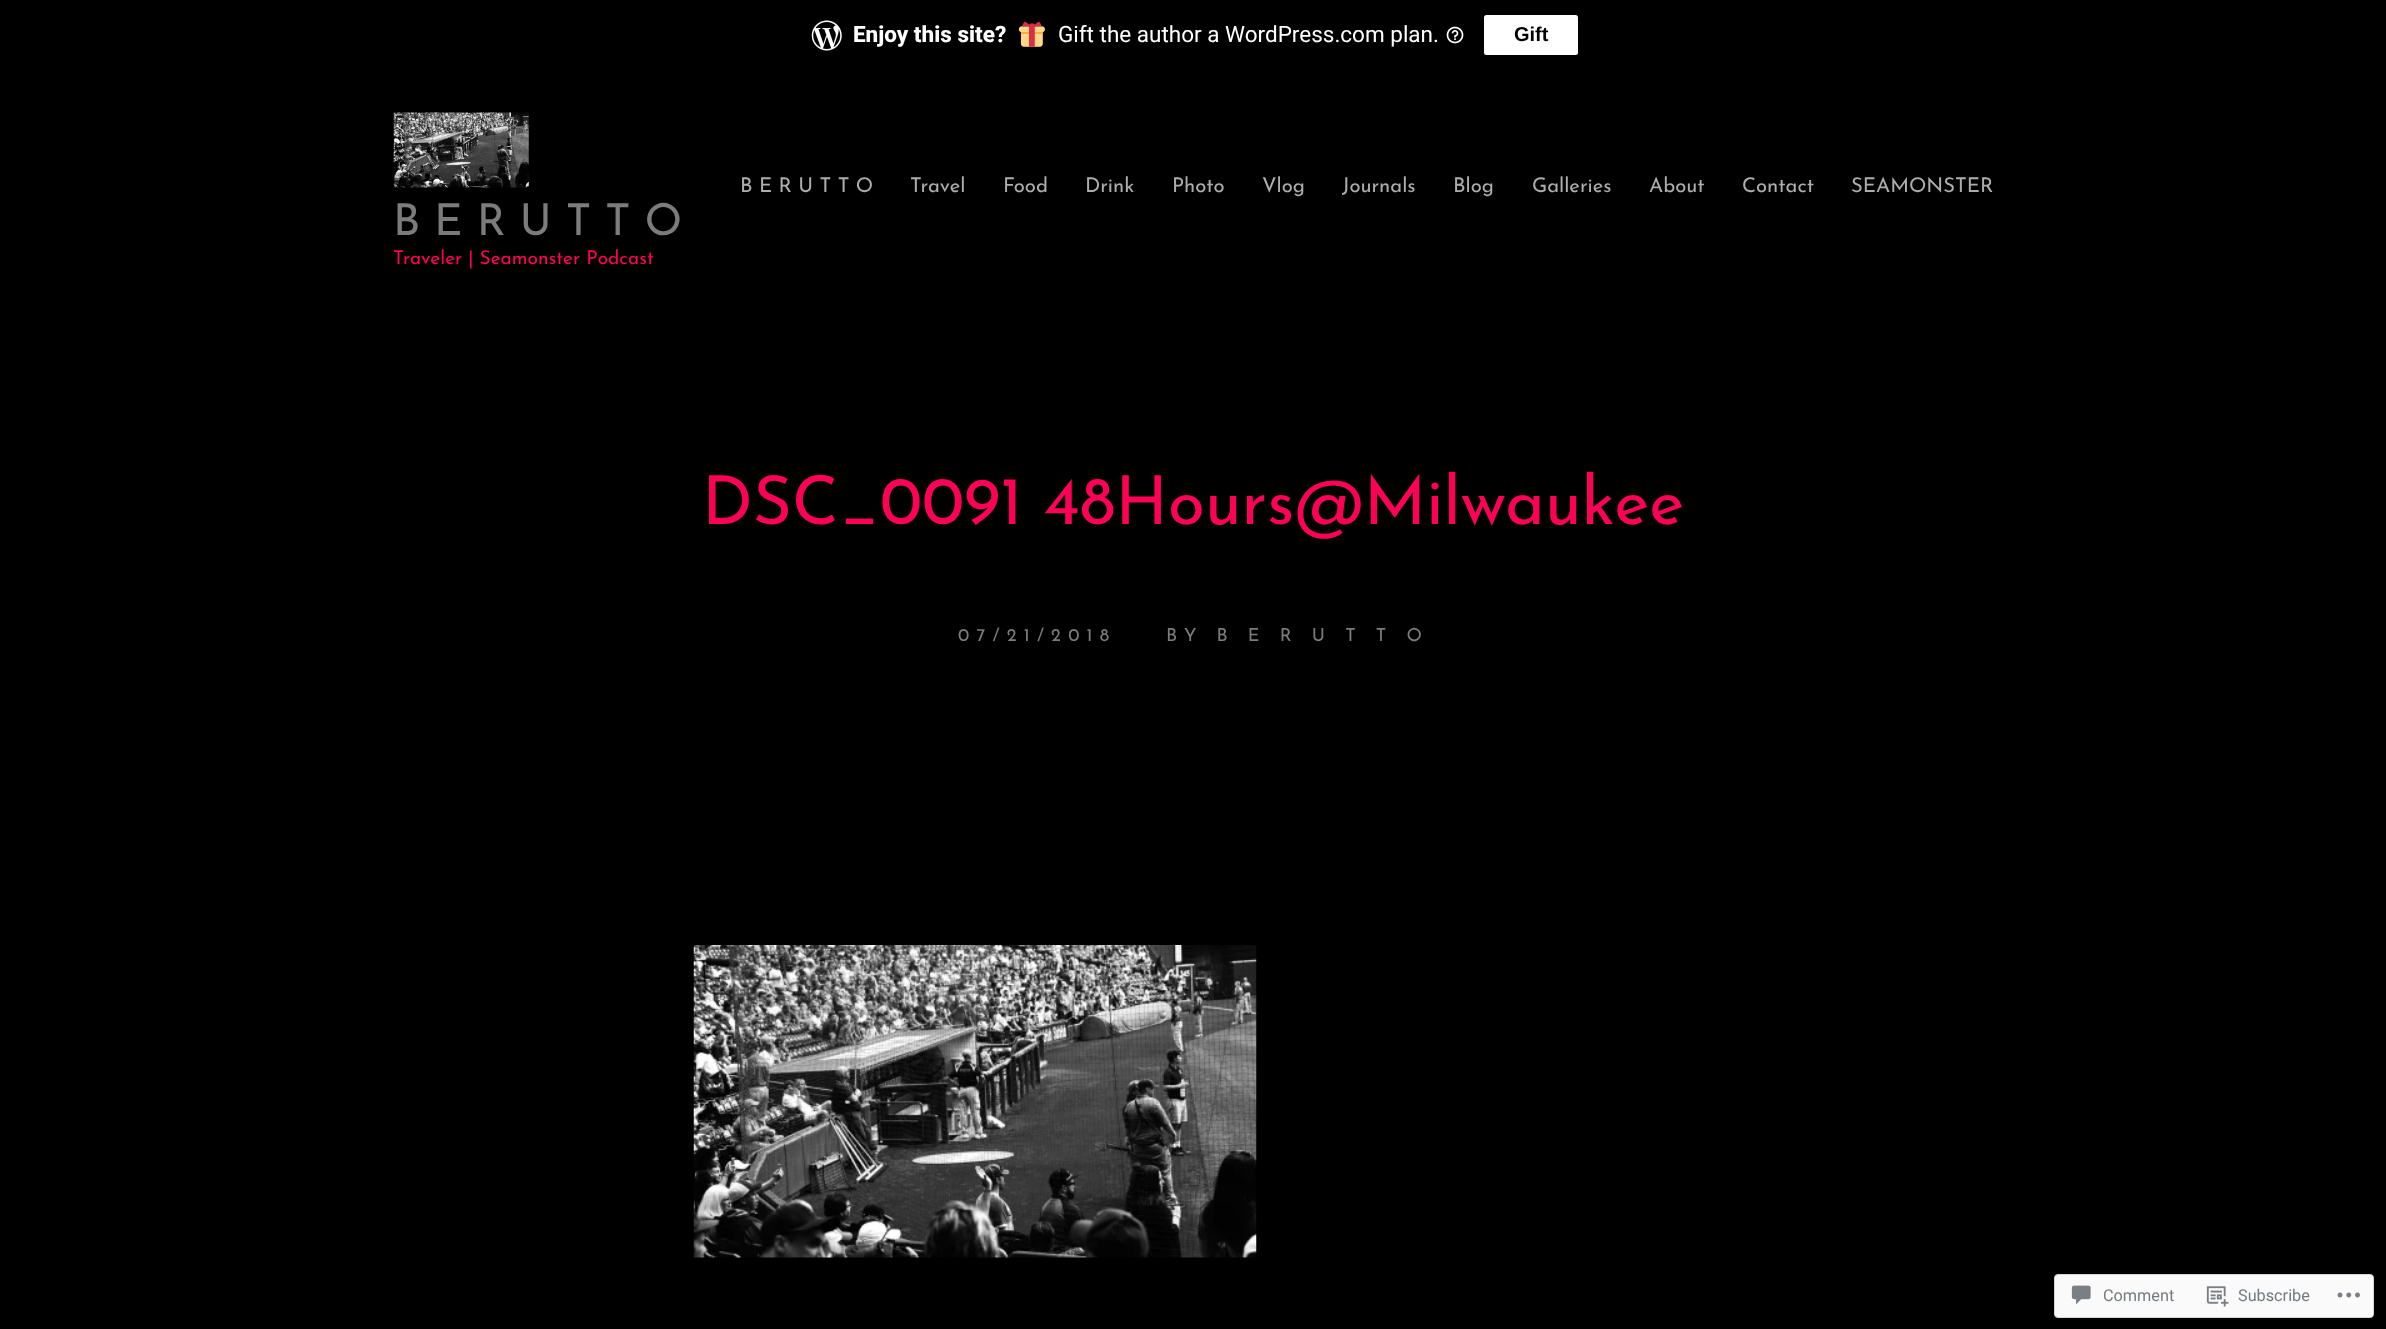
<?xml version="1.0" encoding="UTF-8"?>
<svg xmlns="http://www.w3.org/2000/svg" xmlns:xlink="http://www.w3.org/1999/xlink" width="2386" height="1329">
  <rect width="100%" height="100%" fill="#000000" />
  <image x="811" y="20" width="31" height="31" xlink:href="image1.png" />
  <image x="1019" y="21" width="26" height="26" xlink:href="image2.png" />
  <image x="1446" y="26" width="18" height="18" xlink:href="image3.png" />
  <rect x="1484" y="15" width="94" height="40" rx="2.5" fill="#ffffff" />
  <image x="393" y="112" width="136" height="76" xlink:href="image4.png" />
  <image x="693" y="945" width="564" height="313" xlink:href="image5.png" />
  <rect x="2054.5" y="1274.5" width="319" height="43" rx="3.5" fill="#fafafa" stroke="#d8d8da" />
  <image x="2071" y="1285" width="20" height="20" xlink:href="image6.png" />
  <image x="2206" y="1286" width="23" height="21" xlink:href="image7.png" />
  <image x="2337" y="1292" width="23" height="6" xlink:href="image8.png" />
  <text x="853" y="42" style="font-family: Roboto; font-size: 22.5px; font-weight: 800; fill: #ffffff">Enjoy this site?</text>
  <text x="1058" y="42" style="font-family: Roboto; font-size: 22.5px; fill: #ffffff">Gift the author a WordPress.com plan.</text>
  <text x="1514" y="41" style="font-family: Liberation Sans; font-size: 20px; font-weight: bold; fill: #000000">Gift</text>
  <text x="740" y="192" style="font-family: Josefin Sans; font-size: 20.25px; fill: #adadad">B E R U T T O</text>
  <text x="910" y="192" style="font-family: Josefin Sans; font-size: 20.25px; fill: #adadad">Travel</text>
  <text x="1003" y="192" style="font-family: Josefin Sans; font-size: 20.25px; fill: #adadad">Food</text>
  <text x="1085" y="192" style="font-family: Josefin Sans; font-size: 20.25px; fill: #adadad">Drink</text>
  <text x="1172" y="192" style="font-family: Josefin Sans; font-size: 20.25px; fill: #adadad">Photo</text>
  <text x="1262" y="192" style="font-family: Josefin Sans; font-size: 20.25px; fill: #adadad">Vlog</text>
  <text x="1342" y="192" style="font-family: Josefin Sans; font-size: 20.25px; fill: #adadad">Journals</text>
  <text x="1453" y="192" style="font-family: Josefin Sans; font-size: 20.25px; fill: #adadad">Blog</text>
  <text x="1532" y="192" style="font-family: Josefin Sans; font-size: 20.25px; fill: #adadad">Galleries</text>
  <text x="1649" y="192" style="font-family: Josefin Sans; font-size: 20.25px; fill: #adadad">About</text>
  <text x="1742" y="192" style="font-family: Josefin Sans; font-size: 20.25px; fill: #adadad">Contact</text>
  <text x="1851" y="192" style="font-family: Josefin Sans; font-size: 20.25px; fill: #adadad">SEAMONSTER</text>
  <text x="393" y="235" style="font-family: Josefin Sans; font-size: 44px; fill: #7c7c7c">B E R U T T O</text>
  <text x="393" y="264" style="font-family: Josefin Sans; font-size: 19.1px; fill: #fd0158">Traveler | Seamonster Podcast</text>
  <text x="702" y="524" style="font-family: Josefin Sans; font-size: 67.5px; fill: #fd0158">DSC_0091 48Hours@Milwaukee</text>
  <text x="958" y="641" style="font-family: Josefin Sans; font-size: 18px; letter-spacing: 7.25px; fill: #7c7c7c">07/21/2018</text>
  <text x="1166" y="641" style="font-family: Josefin Sans; font-size: 18px; letter-spacing: 7.25px; fill: #7c7c7c">BY B E R U T T O</text>
  <text x="2103" y="1301" style="font-family: Roboto; font-size: 16.25px; fill: #767a7f">Comment</text>
  <text x="2238" y="1301" style="font-family: Roboto; font-size: 16.25px; fill: #767a7f">Subscribe</text>
</svg>
